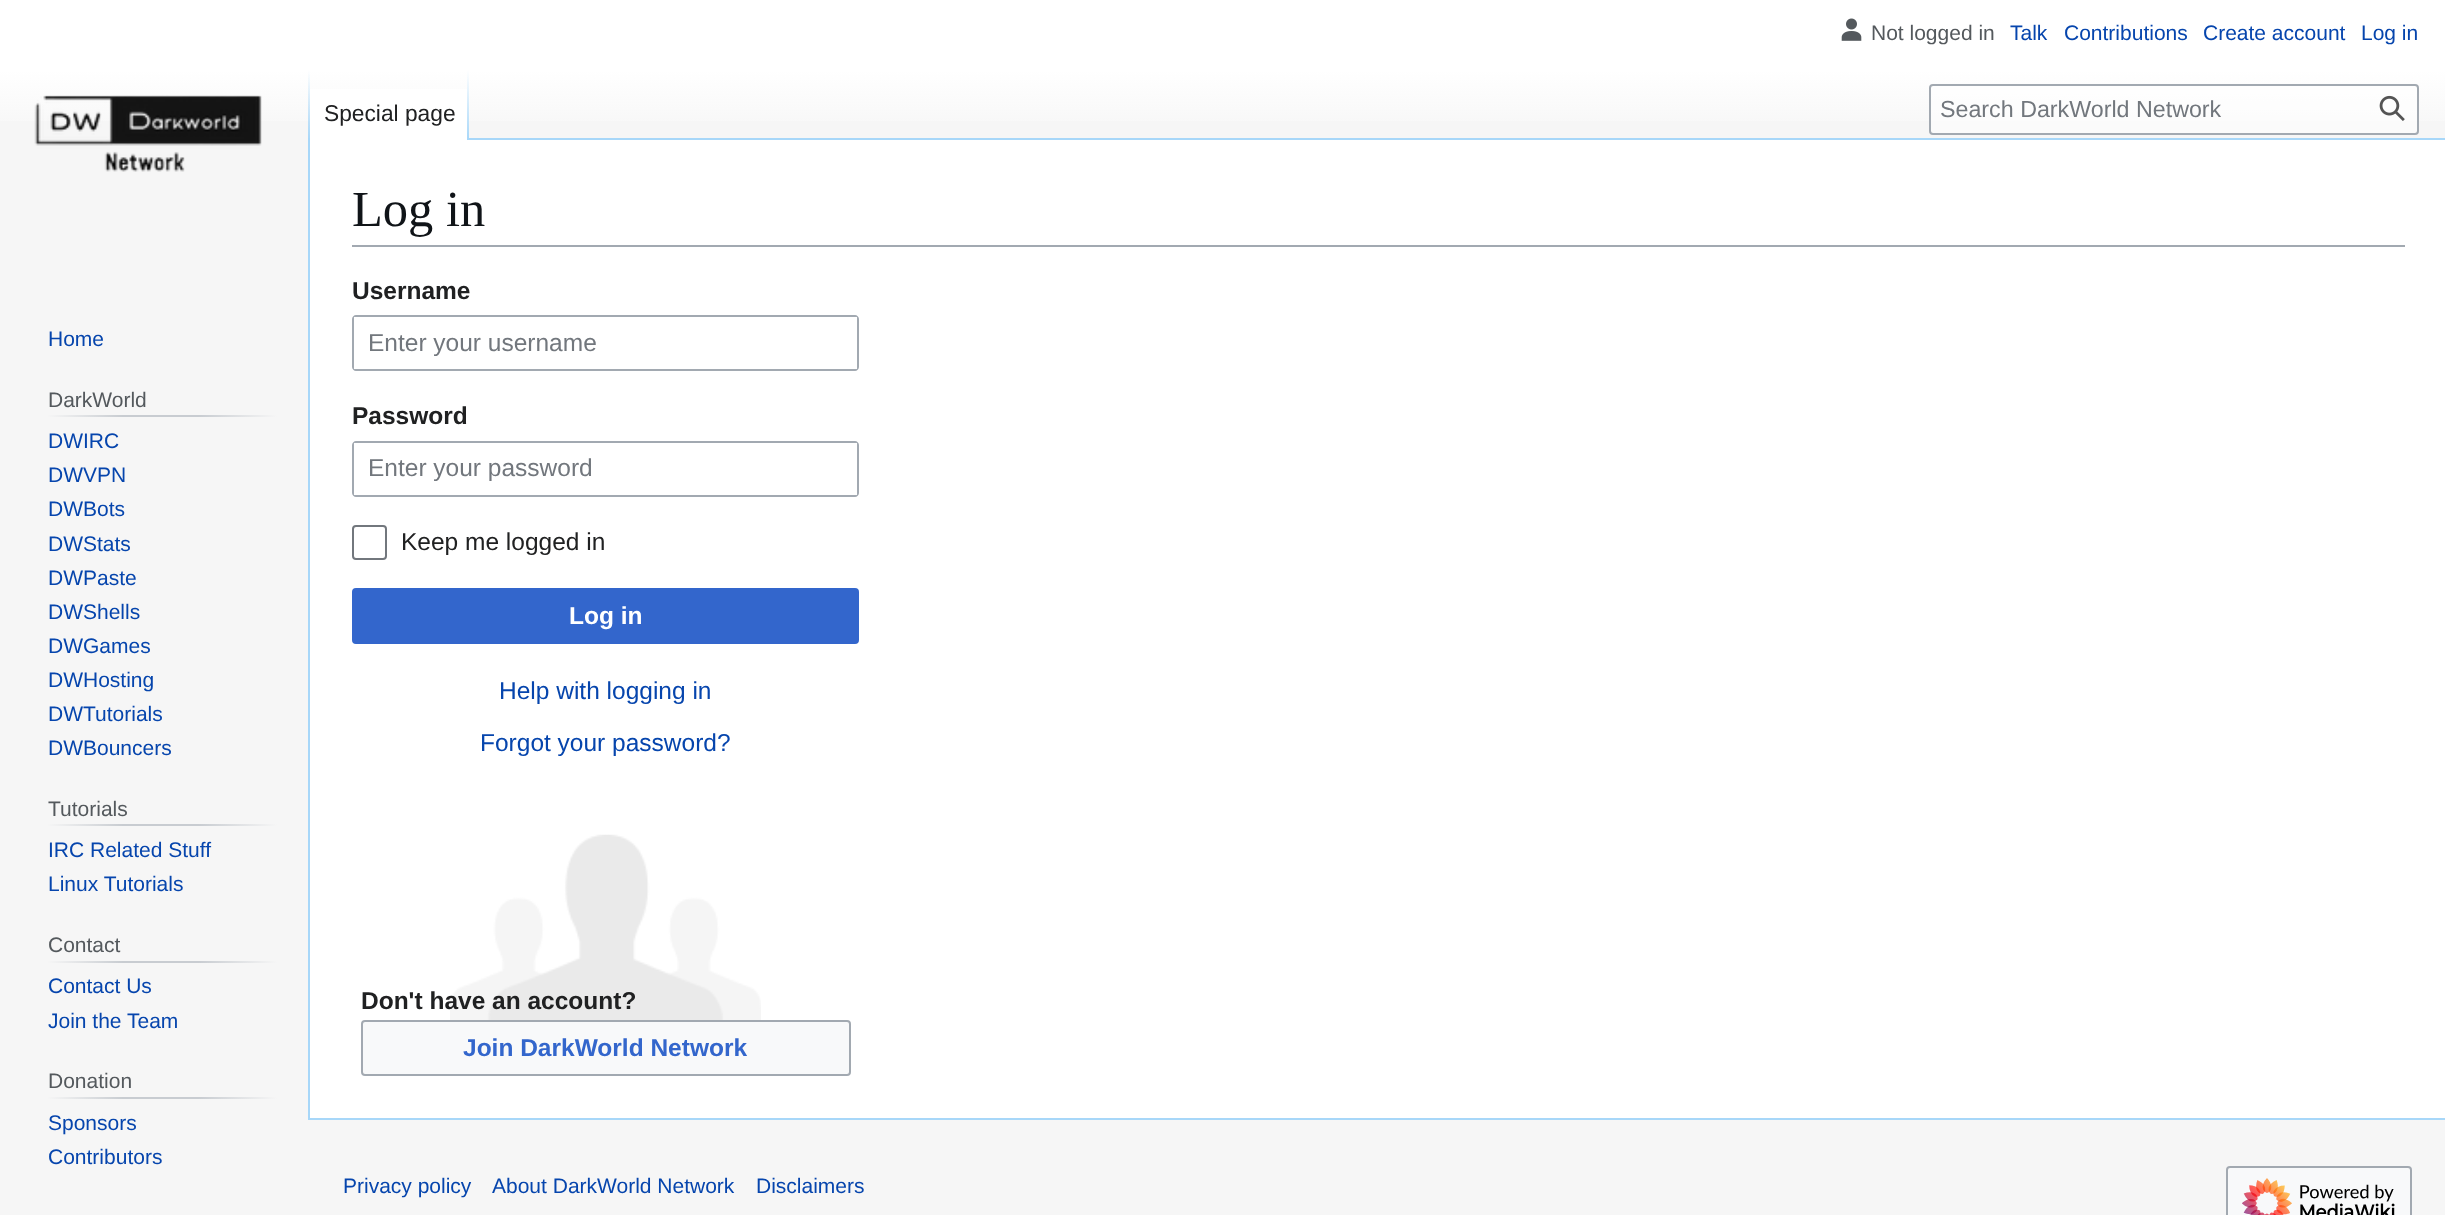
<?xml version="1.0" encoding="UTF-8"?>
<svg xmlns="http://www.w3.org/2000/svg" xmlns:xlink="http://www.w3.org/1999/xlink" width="2445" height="1215">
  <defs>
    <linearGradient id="g1" gradientUnits="userSpaceOnUse" x1="1223" y1="0" x2="1223" y2="140"><stop offset="0.5" stop-color="#ffffff" /><stop offset="1" stop-color="#f6f6f6" /></linearGradient>
    <linearGradient id="g2" gradientUnits="userSpaceOnUse" x1="309" y1="70" x2="309" y2="140"><stop offset="0" stop-color="#a7d7f9" stop-opacity="0" /><stop offset="1" stop-color="#a7d7f9" /></linearGradient>
    <linearGradient id="g3" gradientUnits="userSpaceOnUse" x1="468" y1="70" x2="468" y2="140"><stop offset="0" stop-color="#ffffff" /><stop offset="1" stop-color="#a7d7f9" /></linearGradient>
    <linearGradient id="g4" gradientUnits="userSpaceOnUse" x1="47" y1="416" x2="277" y2="416"><stop offset="0" stop-color="#f6f6f6" /><stop offset="0.33" stop-color="#c8ccd1" /><stop offset="0.66" stop-color="#c8ccd1" /><stop offset="1" stop-color="#f6f6f6" /></linearGradient>
    <linearGradient id="g5" gradientUnits="userSpaceOnUse" x1="47" y1="825" x2="277" y2="825"><stop offset="0" stop-color="#f6f6f6" /><stop offset="0.33" stop-color="#c8ccd1" /><stop offset="0.66" stop-color="#c8ccd1" /><stop offset="1" stop-color="#f6f6f6" /></linearGradient>
    <linearGradient id="g6" gradientUnits="userSpaceOnUse" x1="47" y1="962" x2="277" y2="962"><stop offset="0" stop-color="#f6f6f6" /><stop offset="0.33" stop-color="#c8ccd1" /><stop offset="0.66" stop-color="#c8ccd1" /><stop offset="1" stop-color="#f6f6f6" /></linearGradient>
    <linearGradient id="g7" gradientUnits="userSpaceOnUse" x1="47" y1="1098" x2="277" y2="1098"><stop offset="0" stop-color="#f6f6f6" /><stop offset="0.33" stop-color="#c8ccd1" /><stop offset="0.66" stop-color="#c8ccd1" /><stop offset="1" stop-color="#f6f6f6" /></linearGradient>
  </defs>
  <rect width="100%" height="100%" fill="#f6f6f6" />
  <rect width="2445" height="121" fill="url(#g1)" />
  <image x="1841" y="18" width="21" height="23" xlink:href="image1.png" />
  <rect x="308" y="1118" width="2137" height="2" fill="#a7d7f9" />
  <rect x="308" y="138" width="2" height="982" fill="#a7d7f9" />
  <rect x="308" y="70" width="2" height="70" fill="url(#g2)" />
  <rect x="310" y="89" width="157" height="51" fill="#ffffff" />
  <rect x="467" y="70" width="2" height="70" fill="url(#g3)" />
  <rect x="1930" y="85" width="488" height="49" rx="3" fill="#ffffff" fill-opacity="0.5" stroke="#a2a9b1" stroke-width="2" />
  <image x="2379" y="95" width="26" height="26" xlink:href="image2.png" />
  <image x="34" y="95" width="228" height="77" xlink:href="image3.png" />
  <rect x="47" y="415" width="230" height="2" fill="url(#g4)" />
  <rect x="47" y="824" width="230" height="2" fill="url(#g5)" />
  <rect x="47" y="961" width="230" height="2" fill="url(#g6)" />
  <rect x="47" y="1097" width="230" height="2" fill="url(#g7)" />
  <rect x="310" y="140" width="2135" height="978" fill="#ffffff" />
  <rect x="469" y="138" width="1976" height="2" fill="#a7d7f9" />
  <rect x="352" y="245" width="2053" height="2" fill="#a2a9b1" />
  <path d="M 356 315 c -2 0 -4 2 -4 4 v 48 c 0 2 2 4 4 4 h 499 c 2 0 4 -2 4 -4 v -48 c 0 -2 -2 -4 -4 -4 z m -2 2 v 52 h 503 v -52 z" fill="#a2a9b1" fill-rule="evenodd" />
  <path d="M 356 441 c -2 0 -4 2 -4 4 v 48 c 0 2 2 4 4 4 h 499 c 2 0 4 -2 4 -4 v -48 c 0 -2 -2 -4 -4 -4 z m -2 2 v 52 h 503 v -52 z" fill="#a2a9b1" fill-rule="evenodd" />
  <rect x="353" y="526" width="33" height="33" rx="3" fill="none" stroke="#72777d" stroke-width="2" />
  <rect x="353" y="589" width="505" height="54" rx="3" fill="#3366cc" stroke="#3366cc" stroke-width="2" />
  <image x="450" y="834" width="311" height="186" xlink:href="image4.png" />
  <rect x="362" y="1021" width="488" height="54" rx="3" fill="#f8f9fa" stroke="#a2a9b1" stroke-width="2" />
  <rect x="2227" y="1167" width="184" height="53" rx="3" fill="#f8f9fa" stroke="#a2a9b1" stroke-width="2" />
  <image x="2242" y="1178" width="153" height="37" xlink:href="image5.png" />
  <text x="1871" y="40" style="font-family: Liberation Sans; font-size: 21px; fill: #54595d">Not logged in</text>
  <text x="2010" y="40" style="font-family: Liberation Sans; font-size: 21px; fill: #0645ad">Talk</text>
  <text x="2064" y="40" style="font-family: Liberation Sans; font-size: 21px; fill: #0645ad">Contributions</text>
  <text x="2203" y="40" style="font-family: Liberation Sans; font-size: 21px; fill: #0645ad">Create account</text>
  <text x="2361" y="40" style="font-family: Liberation Sans; font-size: 21px; fill: #0645ad">Log in</text>
  <text x="324" y="121" style="font-family: Liberation Sans; font-size: 22.75px; fill: #202122">Special page</text>
  <text x="1940" y="117" style="font-family: Liberation Sans; font-size: 23.25px; fill: #72777d">Search DarkWorld Network</text>
  <text x="48" y="346" style="font-family: Liberation Sans; font-size: 21px; fill: #0645ad">Home</text>
  <text x="48" y="407" style="font-family: Liberation Sans; font-size: 21px; fill: #54595d">DarkWorld</text>
  <text x="48" y="448" style="font-family: Liberation Sans; font-size: 21px; fill: #0645ad">DWIRC</text>
  <text x="48" y="482" style="font-family: Liberation Sans; font-size: 21px; fill: #0645ad">DWVPN</text>
  <text x="48" y="516" style="font-family: Liberation Sans; font-size: 21px; fill: #0645ad">DWBots</text>
  <text x="48" y="551" style="font-family: Liberation Sans; font-size: 21px; fill: #0645ad">DWStats</text>
  <text x="48" y="585" style="font-family: Liberation Sans; font-size: 21px; fill: #0645ad">DWPaste</text>
  <text x="48" y="619" style="font-family: Liberation Sans; font-size: 21px; fill: #0645ad">DWShells</text>
  <text x="48" y="653" style="font-family: Liberation Sans; font-size: 21px; fill: #0645ad">DWGames</text>
  <text x="48" y="687" style="font-family: Liberation Sans; font-size: 21px; fill: #0645ad">DWHosting</text>
  <text x="48" y="721" style="font-family: Liberation Sans; font-size: 21px; fill: #0645ad">DWTutorials</text>
  <text x="48" y="755" style="font-family: Liberation Sans; font-size: 21px; fill: #0645ad">DWBouncers</text>
  <text x="48" y="816" style="font-family: Liberation Sans; font-size: 21px; fill: #54595d">Tutorials</text>
  <text x="48" y="857" style="font-family: Liberation Sans; font-size: 21px; fill: #0645ad">IRC Related Stuff</text>
  <text x="48" y="891" style="font-family: Liberation Sans; font-size: 21px; fill: #0645ad">Linux Tutorials</text>
  <text x="48" y="952" style="font-family: Liberation Sans; font-size: 21px; fill: #54595d">Contact</text>
  <text x="48" y="993" style="font-family: Liberation Sans; font-size: 21px; fill: #0645ad">Contact Us</text>
  <text x="48" y="1028" style="font-family: Liberation Sans; font-size: 21px; fill: #0645ad">Join the Team</text>
  <text x="48" y="1088" style="font-family: Liberation Sans; font-size: 21px; fill: #54595d">Donation</text>
  <text x="48" y="1130" style="font-family: Liberation Sans; font-size: 21px; fill: #0645ad">Sponsors</text>
  <text x="48" y="1164" style="font-family: Liberation Sans; font-size: 21px; fill: #0645ad">Contributors</text>
  <text x="352" y="226" style="font-family: Liberation Serif; font-size: 50.5px; fill: #101418">Log in</text>
  <text x="352" y="299" style="font-family: Liberation Sans; font-size: 24.5px; font-weight: bold; fill: #202122">Username</text>
  <text x="368" y="351" style="font-family: Liberation Sans; font-size: 24.5px; fill: #72777d">Enter your username</text>
  <text x="352" y="424" style="font-family: Liberation Sans; font-size: 24.5px; font-weight: bold; fill: #202122">Password</text>
  <text x="368" y="476" style="font-family: Liberation Sans; font-size: 24.5px; fill: #72777d">Enter your password</text>
  <text x="401" y="550" style="font-family: Liberation Sans; font-size: 24.5px; fill: #202122">Keep me logged in</text>
  <text x="569" y="624" style="font-family: Liberation Sans; font-size: 24.5px; font-weight: bold; fill: #ffffff">Log in</text>
  <text x="499" y="699" style="font-family: Liberation Sans; font-size: 24.5px; fill: #0645ad">Help with logging in</text>
  <text x="480" y="751" style="font-family: Liberation Sans; font-size: 24.5px; fill: #0645ad">Forgot your password?</text>
  <text x="361" y="1009" style="font-family: Liberation Sans; font-size: 24.5px; font-weight: bold; fill: #202122">Don't have an account?</text>
  <text x="463" y="1056" style="font-family: Liberation Sans; font-size: 24.5px; font-weight: bold; fill: #3366cc">Join DarkWorld Network</text>
  <text x="343" y="1193" style="font-family: Liberation Sans; font-size: 21px; fill: #0645ad">Privacy policy</text>
  <text x="492" y="1193" style="font-family: Liberation Sans; font-size: 21px; fill: #0645ad">About DarkWorld Network</text>
  <text x="756" y="1193" style="font-family: Liberation Sans; font-size: 21px; fill: #0645ad">Disclaimers</text>
</svg>
